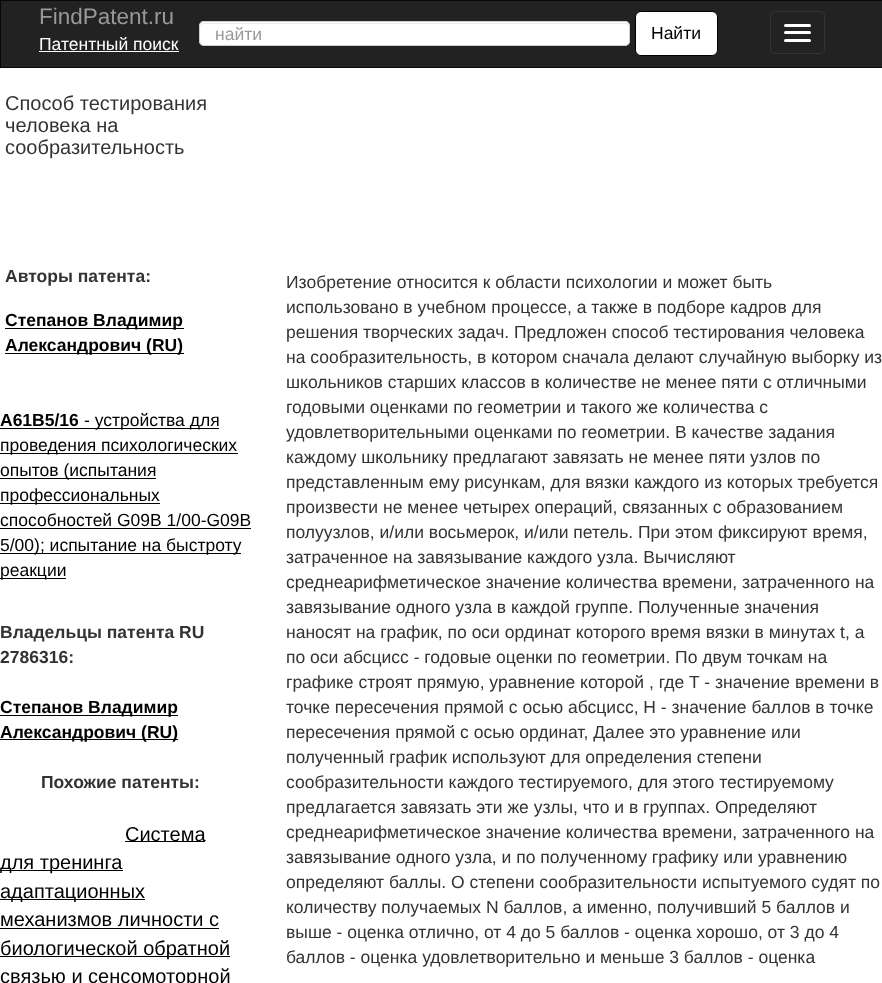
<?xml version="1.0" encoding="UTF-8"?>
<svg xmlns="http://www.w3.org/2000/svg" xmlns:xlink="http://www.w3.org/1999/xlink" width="882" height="983">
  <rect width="100%" height="100%" fill="#ffffff" />
  <rect x="0.5" y="0.5" width="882" height="67" fill="#222222" stroke="#080808" />
  <rect x="39" y="51" width="140" height="1" fill="#ffffff" />
  <rect x="199" y="21" width="431" height="25" rx="5" fill="#ffffff" />
  <path d="M 204 24 h 421 c 2 0 4 1 4 4 c 0 -3 -1 -5 -4 -5 h -421 c -1 0 -3 1 -3 2 l -1 3 c 0 -3 2 -4 4 -4 z" fill="#ececec" />
  <rect x="199.5" y="21.5" width="430" height="24" rx="4.5" fill="none" stroke="#cccccc" />
  <rect x="635.5" y="11.5" width="82" height="44" rx="5.5" fill="#ffffff" stroke="#000000" />
  <rect x="770.5" y="11.5" width="54" height="42" rx="4.5" fill="none" stroke="#333333" />
  <rect x="784" y="24" width="27" height="3" rx="1.5" fill="#ffffff" />
  <rect x="784" y="31" width="27" height="3" rx="1.5" fill="#ffffff" />
  <rect x="784" y="39" width="27" height="3" rx="1.5" fill="#ffffff" />
  <rect x="5" y="328" width="179" height="1" fill="#000000" />
  <rect x="5" y="353" width="179" height="1" fill="#000000" />
  <rect y="428" width="219" height="1" fill="#000000" />
  <rect y="453" width="238" height="1" fill="#000000" />
  <rect y="478" width="156" height="1" fill="#000000" />
  <rect y="503" width="160" height="1" fill="#000000" />
  <rect y="528" width="251" height="1" fill="#000000" />
  <rect y="553" width="241" height="1" fill="#000000" />
  <rect y="578" width="66" height="1" fill="#000000" />
  <rect y="715" width="178" height="1" fill="#000000" />
  <rect y="739" width="178" height="1" fill="#000000" />
  <rect x="125" y="841" width="80" height="1" fill="#000000" />
  <rect y="870" width="123" height="1" fill="#000000" />
  <rect y="899" width="145" height="1" fill="#000000" />
  <rect y="928" width="219" height="1" fill="#000000" />
  <rect y="956" width="230" height="1" fill="#000000" />
  <text x="39" y="24" style="font-family: Liberation Sans; font-size: 22.5px; fill: #999999">FindPatent.ru</text>
  <text x="39" y="50" style="font-family: Liberation Sans; font-size: 17.5px; fill: #ffffff">Патентный поиск</text>
  <text x="215" y="40" style="font-family: Liberation Sans; font-size: 17.5px; fill: #999999">найти</text>
  <text x="651" y="39" style="font-family: Liberation Sans; font-size: 17.5px; fill: #000000">Найти</text>
  <text x="5" y="110" style="font-family: Liberation Sans; font-size: 20px; fill: #333333">Способ тестирования</text>
  <text x="5" y="132" style="font-family: Liberation Sans; font-size: 20px; fill: #333333">человека на</text>
  <text x="5" y="154" style="font-family: Liberation Sans; font-size: 20px; fill: #333333">сообразительность</text>
  <text x="5" y="282" style="font-family: Liberation Sans; font-size: 17.5px; font-weight: bold; fill: #333333">Авторы патента:</text>
  <text x="5" y="326" style="font-family: Liberation Sans; font-size: 17.5px; font-weight: bold; fill: #000000">Степанов Владимир</text>
  <text x="5" y="351" style="font-family: Liberation Sans; font-size: 17.5px; font-weight: bold; fill: #000000">Александрович (RU)</text>
  <text x="0" y="426" style="font-family: Liberation Sans; font-size: 17.5px; font-weight: bold; fill: #000000">A61B5/16</text>
  <text x="84" y="426" style="font-family: Liberation Sans; font-size: 17.5px; fill: #000000">- устройства для</text>
  <text x="0" y="451" style="font-family: Liberation Sans; font-size: 17.5px; fill: #000000">проведения психологических</text>
  <text x="0" y="476" style="font-family: Liberation Sans; font-size: 17.5px; fill: #000000">опытов (испытания</text>
  <text x="0" y="501" style="font-family: Liberation Sans; font-size: 17.5px; fill: #000000">профессиональных</text>
  <text x="0" y="526" style="font-family: Liberation Sans; font-size: 17.5px; fill: #000000">способностей G09B 1/00-G09B</text>
  <text x="0" y="551" style="font-family: Liberation Sans; font-size: 17.5px; fill: #000000">5/00); испытание на быстроту</text>
  <text x="0" y="576" style="font-family: Liberation Sans; font-size: 17.5px; fill: #000000">реакции</text>
  <text x="0" y="638" style="font-family: Liberation Sans; font-size: 17.5px; font-weight: bold; fill: #333333">Владельцы патента RU</text>
  <text x="0" y="663" style="font-family: Liberation Sans; font-size: 17.5px; font-weight: bold; fill: #333333">2786316:</text>
  <text x="0" y="713" style="font-family: Liberation Sans; font-size: 17.5px; font-weight: bold; fill: #000000">Степанов Владимир</text>
  <text x="0" y="738" style="font-family: Liberation Sans; font-size: 17.5px; font-weight: bold; fill: #000000">Александрович (RU)</text>
  <text x="286" y="288" style="font-family: Liberation Sans; font-size: 17.5px; fill: #333333">Изобретение относится к области психологии и может быть</text>
  <text x="286" y="313" style="font-family: Liberation Sans; font-size: 17.5px; fill: #333333">использовано в учебном процессе, а также в подборе кадров для</text>
  <text x="286" y="338" style="font-family: Liberation Sans; font-size: 17.5px; fill: #333333">решения творческих задач. Предложен способ тестирования человека</text>
  <text x="286" y="363" style="font-family: Liberation Sans; font-size: 17.5px; fill: #333333">на сообразительность, в котором сначала делают случайную выборку из</text>
  <text x="286" y="388" style="font-family: Liberation Sans; font-size: 17.5px; fill: #333333">школьников старших классов в количестве не менее пяти с отличными</text>
  <text x="286" y="413" style="font-family: Liberation Sans; font-size: 17.5px; fill: #333333">годовыми оценками по геометрии и такого же количества с</text>
  <text x="286" y="438" style="font-family: Liberation Sans; font-size: 17.5px; fill: #333333">удовлетворительными оценками по геометрии. В качестве задания</text>
  <text x="286" y="463" style="font-family: Liberation Sans; font-size: 17.5px; fill: #333333">каждому школьнику предлагают завязать не менее пяти узлов по</text>
  <text x="286" y="488" style="font-family: Liberation Sans; font-size: 17.5px; fill: #333333">представленным ему рисункам, для вязки каждого из которых требуется</text>
  <text x="286" y="513" style="font-family: Liberation Sans; font-size: 17.5px; fill: #333333">произвести не менее четырех операций, связанных с образованием</text>
  <text x="286" y="538" style="font-family: Liberation Sans; font-size: 17.5px; fill: #333333">полуузлов, и/или восьмерок, и/или петель. При этом фиксируют время,</text>
  <text x="286" y="563" style="font-family: Liberation Sans; font-size: 17.5px; fill: #333333">затраченное на завязывание каждого узла. Вычисляют</text>
  <text x="286" y="588" style="font-family: Liberation Sans; font-size: 17.5px; fill: #333333">среднеарифметическое значение количества времени, затраченного на</text>
  <text x="286" y="613" style="font-family: Liberation Sans; font-size: 17.5px; fill: #333333">завязывание одного узла в каждой группе. Полученные значения</text>
  <text x="286" y="638" style="font-family: Liberation Sans; font-size: 17.5px; fill: #333333">наносят на график, по оси ординат которого время вязки в минутах t, а</text>
  <text x="286" y="663" style="font-family: Liberation Sans; font-size: 17.5px; fill: #333333">по оси абсцисс - годовые оценки по геометрии. По двум точкам на</text>
  <text x="286" y="688" style="font-family: Liberation Sans; font-size: 17.5px; fill: #333333">графике строят прямую, уравнение которой , где T - значение времени в</text>
  <text x="286" y="713" style="font-family: Liberation Sans; font-size: 17.5px; fill: #333333">точке пересечения прямой с осью абсцисс, H - значение баллов в точке</text>
  <text x="286" y="738" style="font-family: Liberation Sans; font-size: 17.5px; fill: #333333">пересечения прямой с осью ординат, Далее это уравнение или</text>
  <text x="286" y="763" style="font-family: Liberation Sans; font-size: 17.5px; fill: #333333">полученный график используют для определения степени</text>
  <text x="286" y="788" style="font-family: Liberation Sans; font-size: 17.5px; fill: #333333">сообразительности каждого тестируемого, для этого тестируемому</text>
  <text x="286" y="813" style="font-family: Liberation Sans; font-size: 17.5px; fill: #333333">предлагается завязать эти же узлы, что и в группах. Определяют</text>
  <text x="286" y="838" style="font-family: Liberation Sans; font-size: 17.5px; fill: #333333">среднеарифметическое значение количества времени, затраченного на</text>
  <text x="286" y="863" style="font-family: Liberation Sans; font-size: 17.5px; fill: #333333">завязывание одного узла, и по полученному графику или уравнению</text>
  <text x="286" y="888" style="font-family: Liberation Sans; font-size: 17.5px; fill: #333333">определяют баллы. О степени сообразительности испытуемого судят по</text>
  <text x="286" y="913" style="font-family: Liberation Sans; font-size: 17.5px; fill: #333333">количеству получаемых N баллов, а именно, получивший 5 баллов и</text>
  <text x="286" y="938" style="font-family: Liberation Sans; font-size: 17.5px; fill: #333333">выше - оценка отлично, от 4 до 5 баллов - оценка хорошо, от 3 до 4</text>
  <text x="286" y="963" style="font-family: Liberation Sans; font-size: 17.5px; fill: #333333">баллов - оценка удовлетворительно и меньше 3 баллов - оценка</text>
  <text x="41" y="788" style="font-family: Liberation Sans; font-size: 17.5px; font-weight: bold; fill: #333333">Похожие патенты:</text>
  <text x="125" y="841" style="font-family: Liberation Sans; font-size: 20px; fill: #000000">Система</text>
  <text x="0" y="869" style="font-family: Liberation Sans; font-size: 20px; fill: #000000">для тренинга</text>
  <text x="0" y="898" style="font-family: Liberation Sans; font-size: 20px; fill: #000000">адаптационных</text>
  <text x="0" y="926" style="font-family: Liberation Sans; font-size: 20px; fill: #000000">механизмов личности с</text>
  <text x="0" y="955" style="font-family: Liberation Sans; font-size: 20px; fill: #000000">биологической обратной</text>
  <text x="0" y="983" style="font-family: Liberation Sans; font-size: 20px; fill: #000000">связью и сенсомоторной</text>
</svg>
